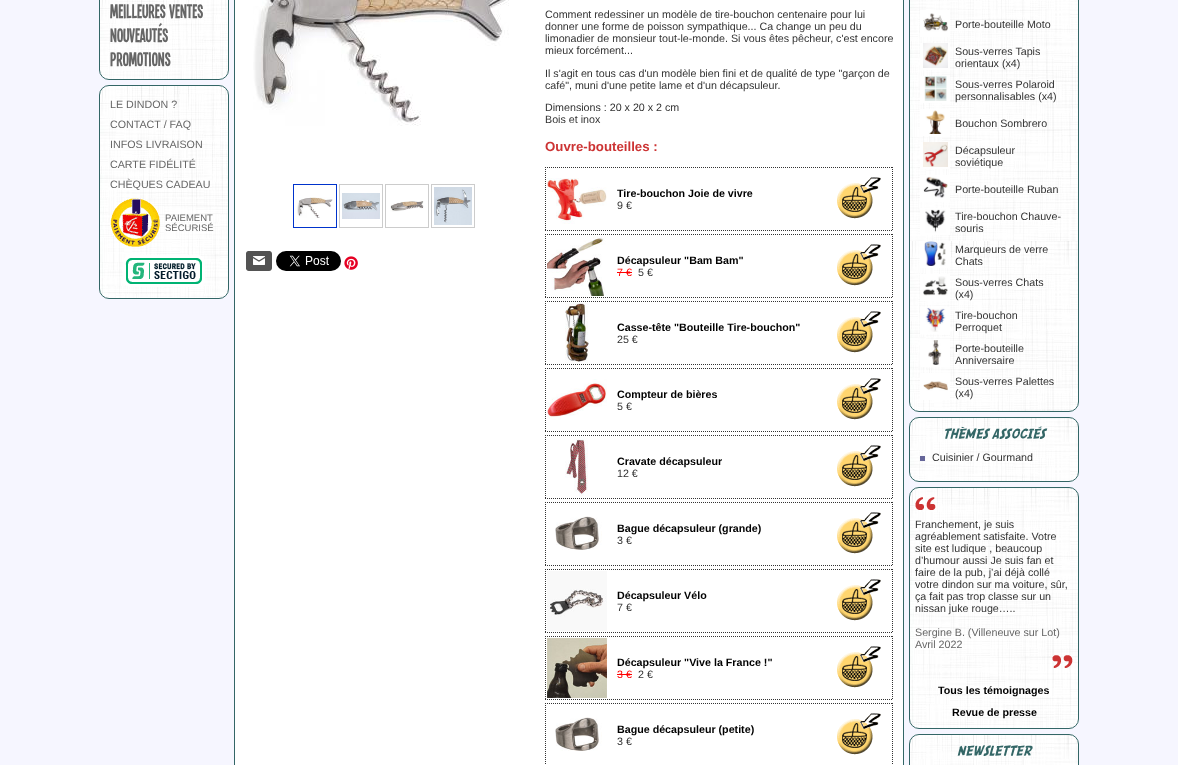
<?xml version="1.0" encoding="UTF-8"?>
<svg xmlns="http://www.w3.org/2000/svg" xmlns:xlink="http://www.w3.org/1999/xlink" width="1178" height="765">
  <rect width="100%" height="100%" fill="#f6f6ff" />
  <image x="99" y="0" width="130" height="80" xlink:href="image1.png" />
  <rect x="99.5" y="-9.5" width="129" height="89" rx="9.5" fill="none" stroke="#336666" />
  <image x="99" y="85" width="130" height="214" xlink:href="image2.png" />
  <rect x="99.5" y="85.5" width="129" height="213" rx="9.5" fill="none" stroke="#336666" />
  <image x="110" y="198" width="50" height="49" xlink:href="image3.png" />
  <image x="123" y="255" width="82" height="32" xlink:href="image4.png" />
  <rect x="234.5" y="-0.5" width="669" height="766" fill="#ffffff" stroke="#336666" />
  <image x="253" y="0" width="256" height="126" xlink:href="image5.png" />
  <rect x="293.5" y="184.5" width="43" height="43" fill="none" stroke="#0033cc" />
  <image x="297" y="197" width="36" height="21" xlink:href="image6.png" />
  <rect x="339.5" y="184.5" width="43" height="43" fill="none" stroke="#cccccc" />
  <image x="342" y="193" width="38" height="26" xlink:href="image7.png" />
  <rect x="385.5" y="184.5" width="43" height="43" fill="none" stroke="#cccccc" />
  <image x="390" y="201" width="34" height="11" xlink:href="image8.png" />
  <rect x="431.5" y="184.5" width="43" height="43" fill="none" stroke="#cccccc" />
  <image x="434" y="187" width="38" height="38" xlink:href="image9.png" />
  <image x="246" y="251" width="26" height="20" xlink:href="image10.png" />
  <image x="276" y="251" width="65" height="20" xlink:href="image11.png" />
  <image x="344" y="256" width="14" height="14" xlink:href="image12.png" />
  <path d="M 545 167.5 h 348" fill="none" stroke="#333333" stroke-dasharray="1 1" />
  <path d="M 892.5 167 v 64" fill="none" stroke="#333333" stroke-dasharray="1 1" />
  <path d="M 545 230.5 h 348" fill="none" stroke="#333333" stroke-dasharray="1 1" />
  <path d="M 545.5 167 v 64" fill="none" stroke="#333333" stroke-dasharray="1 1" />
  <image x="547" y="178" width="60" height="46" xlink:href="image13.png" />
  <image x="837" y="177" width="44" height="42" xlink:href="image14.png" />
  <path d="M 545 234.5 h 348" fill="none" stroke="#333333" stroke-dasharray="1 1" />
  <path d="M 892.5 234 v 64" fill="none" stroke="#333333" stroke-dasharray="1 1" />
  <path d="M 545 297.5 h 348" fill="none" stroke="#333333" stroke-dasharray="1 1" />
  <path d="M 545.5 234 v 64" fill="none" stroke="#333333" stroke-dasharray="1 1" />
  <image x="547" y="236" width="59" height="60" xlink:href="image15.png" />
  <rect x="617" y="272" width="15" height="1" fill="#ff0000" />
  <image x="837" y="244" width="44" height="42" xlink:href="image14.png" />
  <path d="M 545 301.5 h 348" fill="none" stroke="#333333" stroke-dasharray="1 1" />
  <path d="M 892.5 301 v 64" fill="none" stroke="#333333" stroke-dasharray="1 1" />
  <path d="M 545 364.5 h 348" fill="none" stroke="#333333" stroke-dasharray="1 1" />
  <path d="M 545.5 301 v 64" fill="none" stroke="#333333" stroke-dasharray="1 1" />
  <image x="565" y="303" width="24" height="60" xlink:href="image16.png" />
  <image x="837" y="311" width="44" height="42" xlink:href="image14.png" />
  <path d="M 545 368.5 h 348" fill="none" stroke="#333333" stroke-dasharray="1 1" />
  <path d="M 892.5 368 v 64" fill="none" stroke="#333333" stroke-dasharray="1 1" />
  <path d="M 545 431.5 h 348" fill="none" stroke="#333333" stroke-dasharray="1 1" />
  <path d="M 545.5 368 v 64" fill="none" stroke="#333333" stroke-dasharray="1 1" />
  <image x="547" y="379" width="60" height="41" xlink:href="image17.png" />
  <image x="837" y="378" width="44" height="42" xlink:href="image14.png" />
  <path d="M 545 435.5 h 348" fill="none" stroke="#333333" stroke-dasharray="1 1" />
  <path d="M 892.5 435 v 64" fill="none" stroke="#333333" stroke-dasharray="1 1" />
  <path d="M 545 498.5 h 348" fill="none" stroke="#333333" stroke-dasharray="1 1" />
  <path d="M 545.5 435 v 64" fill="none" stroke="#333333" stroke-dasharray="1 1" />
  <image x="565" y="437" width="23" height="60" xlink:href="image18.png" />
  <image x="837" y="445" width="44" height="42" xlink:href="image14.png" />
  <path d="M 545 502.5 h 348" fill="none" stroke="#333333" stroke-dasharray="1 1" />
  <path d="M 892.5 502 v 64" fill="none" stroke="#333333" stroke-dasharray="1 1" />
  <path d="M 545 565.5 h 348" fill="none" stroke="#333333" stroke-dasharray="1 1" />
  <path d="M 545.5 502 v 64" fill="none" stroke="#333333" stroke-dasharray="1 1" />
  <image x="555" y="516" width="47" height="34" xlink:href="image19.png" />
  <image x="837" y="512" width="44" height="42" xlink:href="image14.png" />
  <path d="M 545 569.5 h 348" fill="none" stroke="#333333" stroke-dasharray="1 1" />
  <path d="M 892.5 569 v 64" fill="none" stroke="#333333" stroke-dasharray="1 1" />
  <path d="M 545 632.5 h 348" fill="none" stroke="#333333" stroke-dasharray="1 1" />
  <path d="M 545.5 569 v 64" fill="none" stroke="#333333" stroke-dasharray="1 1" />
  <image x="547" y="571" width="60" height="60" xlink:href="image20.png" />
  <image x="837" y="579" width="44" height="42" xlink:href="image14.png" />
  <path d="M 545 636.5 h 348" fill="none" stroke="#333333" stroke-dasharray="1 1" />
  <path d="M 892.5 636 v 64" fill="none" stroke="#333333" stroke-dasharray="1 1" />
  <path d="M 545 699.5 h 348" fill="none" stroke="#333333" stroke-dasharray="1 1" />
  <path d="M 545.5 636 v 64" fill="none" stroke="#333333" stroke-dasharray="1 1" />
  <image x="547" y="638" width="60" height="60" xlink:href="image21.png" />
  <rect x="617" y="674" width="15" height="1" fill="#ff0000" />
  <image x="837" y="646" width="44" height="42" xlink:href="image14.png" />
  <path d="M 545 703.5 h 348" fill="none" stroke="#333333" stroke-dasharray="1 1" />
  <path d="M 892.5 703 v 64" fill="none" stroke="#333333" stroke-dasharray="1 1" />
  <path d="M 545.5 703 v 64" fill="none" stroke="#333333" stroke-dasharray="1 1" />
  <image x="555" y="717" width="47" height="34" xlink:href="image22.png" />
  <image x="837" y="713" width="44" height="42" xlink:href="image14.png" />
  <image x="909" y="0" width="170" height="412" xlink:href="image23.png" />
  <rect x="909.5" y="-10.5" width="169" height="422" rx="9.5" fill="none" stroke="#336666" />
  <rect x="920" y="10" width="30" height="27" fill="#ffffff" />
  <image x="923" y="13" width="25" height="19" xlink:href="image24.png" />
  <rect x="920" y="43" width="30" height="27" fill="#ffffff" />
  <image x="923" y="43" width="25" height="25" xlink:href="image25.png" />
  <rect x="920" y="76" width="30" height="27" fill="#ffffff" />
  <image x="924" y="76" width="23" height="25" xlink:href="image26.png" />
  <rect x="920" y="109" width="30" height="27" fill="#ffffff" />
  <image x="925" y="110" width="20" height="24" xlink:href="image27.png" />
  <rect x="920" y="142" width="30" height="27" fill="#ffffff" />
  <image x="923" y="142" width="25" height="25" xlink:href="image28.png" />
  <rect x="920" y="175" width="30" height="27" fill="#ffffff" />
  <image x="923" y="176" width="25" height="22" xlink:href="image29.png" />
  <rect x="920" y="208" width="30" height="27" fill="#ffffff" />
  <image x="925" y="209" width="21" height="24" xlink:href="image30.png" />
  <rect x="920" y="241" width="30" height="27" fill="#ffffff" />
  <image x="924" y="241" width="22" height="25" xlink:href="image31.png" />
  <rect x="920" y="274" width="30" height="27" fill="#ffffff" />
  <image x="923" y="276" width="25" height="20" xlink:href="image32.png" />
  <rect x="920" y="307" width="30" height="27" fill="#ffffff" />
  <image x="925" y="307" width="21" height="25" xlink:href="image33.png" />
  <rect x="921" y="340" width="29" height="27" fill="#ffffff" />
  <image x="928" y="340" width="14" height="25" xlink:href="image34.png" />
  <rect x="920" y="373" width="30" height="27" fill="#ffffff" />
  <image x="923" y="381" width="25" height="10" xlink:href="image35.png" />
  <image x="909" y="417" width="170" height="65" xlink:href="image36.png" />
  <rect x="909.5" y="417.5" width="169" height="64" rx="9.5" fill="none" stroke="#336666" />
  <rect x="920" y="456" width="5" height="5" fill="#666699" />
  <image x="909" y="487" width="170" height="242" xlink:href="image37.png" />
  <rect x="909.5" y="487.5" width="169" height="241" rx="9.5" fill="none" stroke="#336666" />
  <image x="915" y="497" width="21" height="13" xlink:href="image38.png" />
  <image x="1052" y="655" width="21" height="13" xlink:href="image39.png" />
  <image x="909" y="734" width="170" height="31" xlink:href="image40.png" />
  <rect x="909.5" y="734.5" width="169" height="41" rx="9.5" fill="none" stroke="#336666" />
  <text x="110" y="18" style="font-family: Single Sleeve; font-size: 10.7px; fill: #666666">MEILLEURES VENTES</text>
  <text x="110" y="42" style="font-family: Single Sleeve; font-size: 10.7px; fill: #666666">NOUVEAUTÉS</text>
  <text x="110" y="66" style="font-family: Single Sleeve; font-size: 10.7px; fill: #666666">PROMOTIONS</text>
  <text x="110" y="108" style="font-family: Liberation Sans; font-size: 10.7px; fill: #666666">LE DINDON ?</text>
  <text x="110" y="128" style="font-family: Liberation Sans; font-size: 10.7px; fill: #666666">CONTACT / FAQ</text>
  <text x="110" y="148" style="font-family: Liberation Sans; font-size: 10.7px; fill: #666666">INFOS LIVRAISON</text>
  <text x="110" y="168" style="font-family: Liberation Sans; font-size: 10.7px; fill: #666666">CARTE FIDÉLITÉ</text>
  <text x="110" y="188" style="font-family: Liberation Sans; font-size: 10.7px; fill: #666666">CHÈQUES CADEAU</text>
  <text x="165" y="221" style="font-family: Liberation Sans; font-size: 9.5px; fill: #666666">PAIEMENT</text>
  <text x="165" y="231" style="font-family: Liberation Sans; font-size: 9.5px; fill: #666666">SÉCURISÉ</text>
  <text x="545" y="18" style="font-family: Liberation Sans; font-size: 10.7px; fill: #333333">Comment redessiner un modèle de tire-bouchon centenaire pour lui</text>
  <text x="545" y="30" style="font-family: Liberation Sans; font-size: 10.7px; fill: #333333">donner une forme de poisson sympathique... Ca change un peu du</text>
  <text x="545" y="42" style="font-family: Liberation Sans; font-size: 10.7px; fill: #333333">limonadier de monsieur tout-le-monde. Si vous êtes pêcheur, c'est encore</text>
  <text x="545" y="54" style="font-family: Liberation Sans; font-size: 10.7px; fill: #333333">mieux forcément...</text>
  <text x="545" y="77" style="font-family: Liberation Sans; font-size: 10.7px; fill: #333333">Il s'agit en tous cas d'un modèle bien fini et de qualité de type "garçon de</text>
  <text x="545" y="89" style="font-family: Liberation Sans; font-size: 10.7px; fill: #333333">café", muni d'une petite lame et d'un décapsuleur.</text>
  <text x="545" y="111" style="font-family: Liberation Sans; font-size: 10.7px; fill: #333333">Dimensions : 20 x 20 x 2 cm</text>
  <text x="545" y="123" style="font-family: Liberation Sans; font-size: 10.7px; fill: #333333">Bois et inox</text>
  <text x="545" y="151" style="font-family: Liberation Sans; font-size: 13.25px; font-weight: bold; fill: #cc3333">Ouvre-bouteilles :</text>
  <text x="617" y="197" style="font-family: Liberation Sans; font-size: 10.7px; font-weight: bold; fill: #000000">Tire-bouchon Joie de vivre</text>
  <text x="617" y="209" style="font-family: Liberation Sans; font-size: 10.7px; fill: #333333">9 €</text>
  <text x="617" y="264" style="font-family: Liberation Sans; font-size: 10.7px; font-weight: bold; fill: #000000">Décapsuleur "Bam Bam"</text>
  <text x="617" y="276" style="font-family: Liberation Sans; font-size: 10.7px; fill: #ff0000">7 €</text>
  <text x="638" y="276" style="font-family: Liberation Sans; font-size: 10.7px; fill: #333333">5 €</text>
  <text x="617" y="331" style="font-family: Liberation Sans; font-size: 10.7px; font-weight: bold; fill: #000000">Casse-tête "Bouteille Tire-bouchon"</text>
  <text x="617" y="343" style="font-family: Liberation Sans; font-size: 10.7px; fill: #333333">25 €</text>
  <text x="617" y="398" style="font-family: Liberation Sans; font-size: 10.7px; font-weight: bold; fill: #000000">Compteur de bières</text>
  <text x="617" y="410" style="font-family: Liberation Sans; font-size: 10.7px; fill: #333333">5 €</text>
  <text x="617" y="465" style="font-family: Liberation Sans; font-size: 10.7px; font-weight: bold; fill: #000000">Cravate décapsuleur</text>
  <text x="617" y="477" style="font-family: Liberation Sans; font-size: 10.7px; fill: #333333">12 €</text>
  <text x="617" y="532" style="font-family: Liberation Sans; font-size: 10.7px; font-weight: bold; fill: #000000">Bague décapsuleur (grande)</text>
  <text x="617" y="544" style="font-family: Liberation Sans; font-size: 10.7px; fill: #333333">3 €</text>
  <text x="617" y="599" style="font-family: Liberation Sans; font-size: 10.7px; font-weight: bold; fill: #000000">Décapsuleur Vélo</text>
  <text x="617" y="611" style="font-family: Liberation Sans; font-size: 10.7px; fill: #333333">7 €</text>
  <text x="617" y="666" style="font-family: Liberation Sans; font-size: 10.7px; font-weight: bold; fill: #000000">Décapsuleur "Vive la France !"</text>
  <text x="617" y="678" style="font-family: Liberation Sans; font-size: 10.7px; fill: #ff0000">3 €</text>
  <text x="638" y="678" style="font-family: Liberation Sans; font-size: 10.7px; fill: #333333">2 €</text>
  <text x="617" y="733" style="font-family: Liberation Sans; font-size: 10.7px; font-weight: bold; fill: #000000">Bague décapsuleur (petite)</text>
  <text x="617" y="745" style="font-family: Liberation Sans; font-size: 10.7px; fill: #333333">3 €</text>
  <text x="955" y="28" style="font-family: Liberation Sans; font-size: 10.7px; fill: #333333">Porte-bouteille Moto</text>
  <text x="955" y="55" style="font-family: Liberation Sans; font-size: 10.7px; fill: #333333">Sous-verres Tapis</text>
  <text x="955" y="67" style="font-family: Liberation Sans; font-size: 10.7px; fill: #333333">orientaux (x4)</text>
  <text x="955" y="88" style="font-family: Liberation Sans; font-size: 10.7px; fill: #333333">Sous-verres Polaroid</text>
  <text x="955" y="100" style="font-family: Liberation Sans; font-size: 10.7px; fill: #333333">personnalisables (x4)</text>
  <text x="955" y="127" style="font-family: Liberation Sans; font-size: 10.7px; fill: #333333">Bouchon Sombrero</text>
  <text x="955" y="154" style="font-family: Liberation Sans; font-size: 10.7px; fill: #333333">Décapsuleur</text>
  <text x="955" y="166" style="font-family: Liberation Sans; font-size: 10.7px; fill: #333333">soviétique</text>
  <text x="955" y="193" style="font-family: Liberation Sans; font-size: 10.7px; fill: #333333">Porte-bouteille Ruban</text>
  <text x="955" y="220" style="font-family: Liberation Sans; font-size: 10.7px; fill: #333333">Tire-bouchon Chauve-</text>
  <text x="955" y="232" style="font-family: Liberation Sans; font-size: 10.7px; fill: #333333">souris</text>
  <text x="955" y="253" style="font-family: Liberation Sans; font-size: 10.7px; fill: #333333">Marqueurs de verre</text>
  <text x="955" y="265" style="font-family: Liberation Sans; font-size: 10.7px; fill: #333333">Chats</text>
  <text x="955" y="286" style="font-family: Liberation Sans; font-size: 10.7px; fill: #333333">Sous-verres Chats</text>
  <text x="955" y="298" style="font-family: Liberation Sans; font-size: 10.7px; fill: #333333">(x4)</text>
  <text x="955" y="319" style="font-family: Liberation Sans; font-size: 10.7px; fill: #333333">Tire-bouchon</text>
  <text x="955" y="331" style="font-family: Liberation Sans; font-size: 10.7px; fill: #333333">Perroquet</text>
  <text x="955" y="352" style="font-family: Liberation Sans; font-size: 10.7px; fill: #333333">Porte-bouteille</text>
  <text x="955" y="364" style="font-family: Liberation Sans; font-size: 10.7px; fill: #333333">Anniversaire</text>
  <text x="955" y="385" style="font-family: Liberation Sans; font-size: 10.7px; fill: #333333">Sous-verres Palettes</text>
  <text x="955" y="397" style="font-family: Liberation Sans; font-size: 10.7px; fill: #333333">(x4)</text>
  <text x="943" y="438" style="font-family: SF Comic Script; font-size: 13.25px; fill: #336666">THÈMES ASSOCIÉS</text>
  <text x="932" y="461" style="font-family: Liberation Sans; font-size: 10.7px; fill: #333333">Cuisinier / Gourmand</text>
  <text x="915" y="528" style="font-family: Liberation Sans; font-size: 10.7px; fill: #333333">Franchement, je suis</text>
  <text x="915" y="540" style="font-family: Liberation Sans; font-size: 10.7px; fill: #333333">agréablement satisfaite. Votre</text>
  <text x="915" y="552" style="font-family: Liberation Sans; font-size: 10.7px; fill: #333333">site est ludique , beaucoup</text>
  <text x="915" y="564" style="font-family: Liberation Sans; font-size: 10.7px; fill: #333333">d’humour aussi Je suis fan et</text>
  <text x="915" y="576" style="font-family: Liberation Sans; font-size: 10.7px; fill: #333333">faire de la pub, j’ai déjà collé</text>
  <text x="915" y="588" style="font-family: Liberation Sans; font-size: 10.7px; fill: #333333">votre dindon sur ma voiture, sûr,</text>
  <text x="915" y="600" style="font-family: Liberation Sans; font-size: 10.7px; fill: #333333">ça fait pas trop classe sur un</text>
  <text x="915" y="612" style="font-family: Liberation Sans; font-size: 10.7px; fill: #333333">nissan juke rouge…..</text>
  <text x="915" y="636" style="font-family: Liberation Sans; font-size: 10.7px; fill: #666666">Sergine B. (Villeneuve sur Lot)</text>
  <text x="915" y="648" style="font-family: Liberation Sans; font-size: 10.7px; fill: #666666">Avril 2022</text>
  <text x="938" y="694" style="font-family: Liberation Sans; font-size: 10.7px; font-weight: bold; fill: #000000">Tous les témoignages</text>
  <text x="952" y="716" style="font-family: Liberation Sans; font-size: 10.7px; font-weight: bold; fill: #000000">Revue de presse</text>
  <text x="957" y="755" style="font-family: SF Comic Script; font-size: 13.25px; fill: #336666">NEWSLETTER</text>
</svg>
